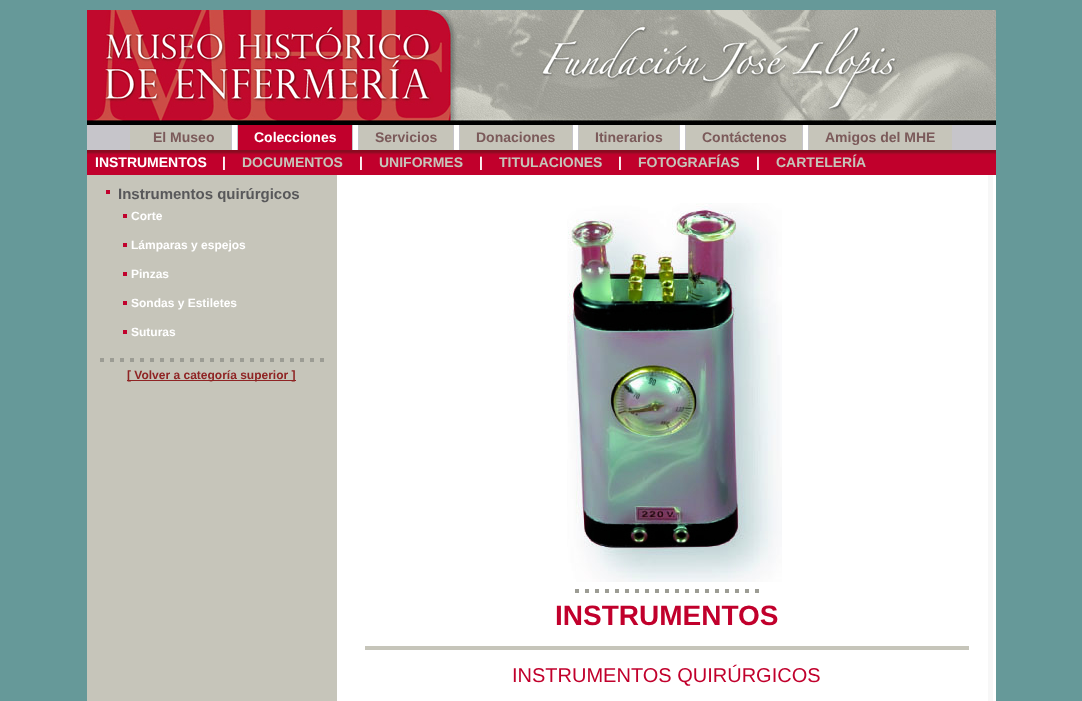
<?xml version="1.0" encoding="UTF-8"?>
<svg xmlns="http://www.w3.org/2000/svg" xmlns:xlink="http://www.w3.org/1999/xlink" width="1082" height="701">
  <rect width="100%" height="100%" fill="#669999" />
  <rect x="337" y="175" width="659" height="526" fill="#ffffff" />
  <image x="87" y="10" width="909" height="115" xlink:href="image1.png" />
  <rect x="87" y="125" width="909" height="25" fill="#c6c5ca" />
  <rect x="130" y="125" width="101" height="25" fill="#c6c5ba" />
  <rect x="232" y="125" width="5" height="25" fill="#ffffff" />
  <rect x="238" y="125" width="114" height="25" fill="#c1002c" />
  <rect x="353" y="125" width="5" height="25" fill="#ffffff" />
  <rect x="359" y="125" width="94" height="25" fill="#c6c5ba" />
  <rect x="454" y="125" width="5" height="25" fill="#ffffff" />
  <rect x="460" y="125" width="112" height="25" fill="#c6c5ba" />
  <rect x="573" y="125" width="5" height="25" fill="#ffffff" />
  <rect x="579" y="125" width="100" height="25" fill="#c6c5ba" />
  <rect x="680" y="125" width="5" height="25" fill="#ffffff" />
  <rect x="686" y="125" width="116" height="25" fill="#c6c5ba" />
  <rect x="803" y="125" width="5" height="25" fill="#ffffff" />
  <rect x="809" y="125" width="143" height="25" fill="#c6c5ba" />
  <rect x="87" y="155" width="909" height="20" fill="#c1002c" />
  <image x="87" y="150" width="909" height="5" xlink:href="image2.png" />
  <rect x="87" y="175" width="250" height="526" fill="#c6c5ba" />
  <rect x="106" y="190" width="4" height="4" fill="#c1002c" />
  <rect x="123" y="214" width="4" height="4" fill="#c1002c" />
  <rect x="123" y="243" width="4" height="4" fill="#c1002c" />
  <rect x="123" y="272" width="4" height="4" fill="#c1002c" />
  <rect x="123" y="301" width="4" height="4" fill="#c1002c" />
  <rect x="123" y="330" width="4" height="4" fill="#c1002c" />
  <rect x="100" y="358" width="4" height="4" fill="#9c9c94" />
  <rect x="110" y="358" width="4" height="4" fill="#9c9c94" />
  <rect x="120" y="358" width="4" height="4" fill="#9c9c94" />
  <rect x="130" y="358" width="4" height="4" fill="#9c9c94" />
  <rect x="140" y="358" width="4" height="4" fill="#9c9c94" />
  <rect x="150" y="358" width="4" height="4" fill="#9c9c94" />
  <rect x="160" y="358" width="4" height="4" fill="#9c9c94" />
  <rect x="170" y="358" width="4" height="4" fill="#9c9c94" />
  <rect x="180" y="358" width="4" height="4" fill="#9c9c94" />
  <rect x="190" y="358" width="4" height="4" fill="#9c9c94" />
  <rect x="200" y="358" width="4" height="4" fill="#9c9c94" />
  <rect x="210" y="358" width="4" height="4" fill="#9c9c94" />
  <rect x="220" y="358" width="4" height="4" fill="#9c9c94" />
  <rect x="230" y="358" width="4" height="4" fill="#9c9c94" />
  <rect x="240" y="358" width="4" height="4" fill="#9c9c94" />
  <rect x="250" y="358" width="4" height="4" fill="#9c9c94" />
  <rect x="260" y="358" width="4" height="4" fill="#9c9c94" />
  <rect x="270" y="358" width="4" height="4" fill="#9c9c94" />
  <rect x="280" y="358" width="4" height="4" fill="#9c9c94" />
  <rect x="290" y="358" width="4" height="4" fill="#9c9c94" />
  <rect x="300" y="358" width="4" height="4" fill="#9c9c94" />
  <rect x="310" y="358" width="4" height="4" fill="#9c9c94" />
  <rect x="320" y="358" width="4" height="4" fill="#9c9c94" />
  <rect x="127" y="380" width="169" height="1" fill="#8f2424" />
  <image x="567" y="203" width="215" height="379" xlink:href="image3.png" />
  <rect x="575" y="589" width="4" height="4" fill="#9c9c94" />
  <rect x="585" y="589" width="4" height="4" fill="#9c9c94" />
  <rect x="595" y="589" width="4" height="4" fill="#9c9c94" />
  <rect x="605" y="589" width="4" height="4" fill="#9c9c94" />
  <rect x="615" y="589" width="4" height="4" fill="#9c9c94" />
  <rect x="625" y="589" width="4" height="4" fill="#9c9c94" />
  <rect x="635" y="589" width="4" height="4" fill="#9c9c94" />
  <rect x="645" y="589" width="4" height="4" fill="#9c9c94" />
  <rect x="655" y="589" width="4" height="4" fill="#9c9c94" />
  <rect x="665" y="589" width="4" height="4" fill="#9c9c94" />
  <rect x="675" y="589" width="4" height="4" fill="#9c9c94" />
  <rect x="685" y="589" width="4" height="4" fill="#9c9c94" />
  <rect x="695" y="589" width="4" height="4" fill="#9c9c94" />
  <rect x="705" y="589" width="4" height="4" fill="#9c9c94" />
  <rect x="715" y="589" width="4" height="4" fill="#9c9c94" />
  <rect x="725" y="589" width="4" height="4" fill="#9c9c94" />
  <rect x="735" y="589" width="4" height="4" fill="#9c9c94" />
  <rect x="745" y="589" width="4" height="4" fill="#9c9c94" />
  <rect x="755" y="589" width="4" height="4" fill="#9c9c94" />
  <rect x="365" y="646" width="604" height="4" fill="#c6c5ba" />
  <rect x="988" y="175" width="5" height="526" fill="#f7f7f7" />
  <text x="153" y="142" style="font-family: Liberation Sans; font-size: 14px; font-weight: bold; fill: #7b5a5a">El Museo</text>
  <text x="254" y="142" style="font-family: Liberation Sans; font-size: 14px; font-weight: bold; fill: #ffffff">Colecciones</text>
  <text x="375" y="142" style="font-family: Liberation Sans; font-size: 14px; font-weight: bold; fill: #7b5a5a">Servicios</text>
  <text x="476" y="142" style="font-family: Liberation Sans; font-size: 14px; font-weight: bold; fill: #7b5a5a">Donaciones</text>
  <text x="595" y="142" style="font-family: Liberation Sans; font-size: 14px; font-weight: bold; fill: #7b5a5a">Itinerarios</text>
  <text x="702" y="142" style="font-family: Liberation Sans; font-size: 14px; font-weight: bold; fill: #7b5a5a">Contáctenos</text>
  <text x="825" y="142" style="font-family: Liberation Sans; font-size: 14px; font-weight: bold; fill: #7b5a5a">Amigos del MHE</text>
  <text x="95" y="167" style="font-family: Liberation Sans; font-size: 14px; font-weight: bold; fill: #ffffff">INSTRUMENTOS</text>
  <text x="222" y="167" style="font-family: Liberation Sans; font-size: 14px; font-weight: bold; fill: #ffffff">|</text>
  <text x="242" y="167" style="font-family: Liberation Sans; font-size: 14px; font-weight: bold; fill: #c6c5ba">DOCUMENTOS</text>
  <text x="359" y="167" style="font-family: Liberation Sans; font-size: 14px; font-weight: bold; fill: #ffffff">|</text>
  <text x="379" y="167" style="font-family: Liberation Sans; font-size: 14px; font-weight: bold; fill: #c6c5ba">UNIFORMES</text>
  <text x="479" y="167" style="font-family: Liberation Sans; font-size: 14px; font-weight: bold; fill: #ffffff">|</text>
  <text x="499" y="167" style="font-family: Liberation Sans; font-size: 14px; font-weight: bold; fill: #c6c5ba">TITULACIONES</text>
  <text x="618" y="167" style="font-family: Liberation Sans; font-size: 14px; font-weight: bold; fill: #ffffff">|</text>
  <text x="638" y="167" style="font-family: Liberation Sans; font-size: 14px; font-weight: bold; fill: #c6c5ba">FOTOGRAFÍAS</text>
  <text x="756" y="167" style="font-family: Liberation Sans; font-size: 14px; font-weight: bold; fill: #ffffff">|</text>
  <text x="776" y="167" style="font-family: Liberation Sans; font-size: 14px; font-weight: bold; fill: #c6c5ba">CARTELERÍA</text>
  <text x="118" y="199" style="font-family: Liberation Sans; font-size: 15px; font-weight: bold; fill: #58585a">Instrumentos quirúrgicos</text>
  <text x="131" y="220" style="font-family: Liberation Sans; font-size: 12px; font-weight: bold; fill: #ffffff">Corte</text>
  <text x="131" y="249" style="font-family: Liberation Sans; font-size: 12px; font-weight: bold; fill: #ffffff">Lámparas y espejos</text>
  <text x="131" y="278" style="font-family: Liberation Sans; font-size: 12px; font-weight: bold; fill: #ffffff">Pinzas</text>
  <text x="131" y="307" style="font-family: Liberation Sans; font-size: 12px; font-weight: bold; fill: #ffffff">Sondas y Estiletes</text>
  <text x="131" y="336" style="font-family: Liberation Sans; font-size: 12px; font-weight: bold; fill: #ffffff">Suturas</text>
  <text x="127" y="379" style="font-family: Liberation Sans; font-size: 12px; font-weight: bold; fill: #8f2424">[ Volver a categoría superior ]</text>
  <text x="555" y="625" style="font-family: Liberation Sans; font-size: 28px; font-weight: bold; fill: #c1002c">INSTRUMENTOS</text>
  <text x="512" y="682" style="font-family: Liberation Sans; font-size: 20px; fill: #c1002c">INSTRUMENTOS QUIRÚRGICOS</text>
</svg>
